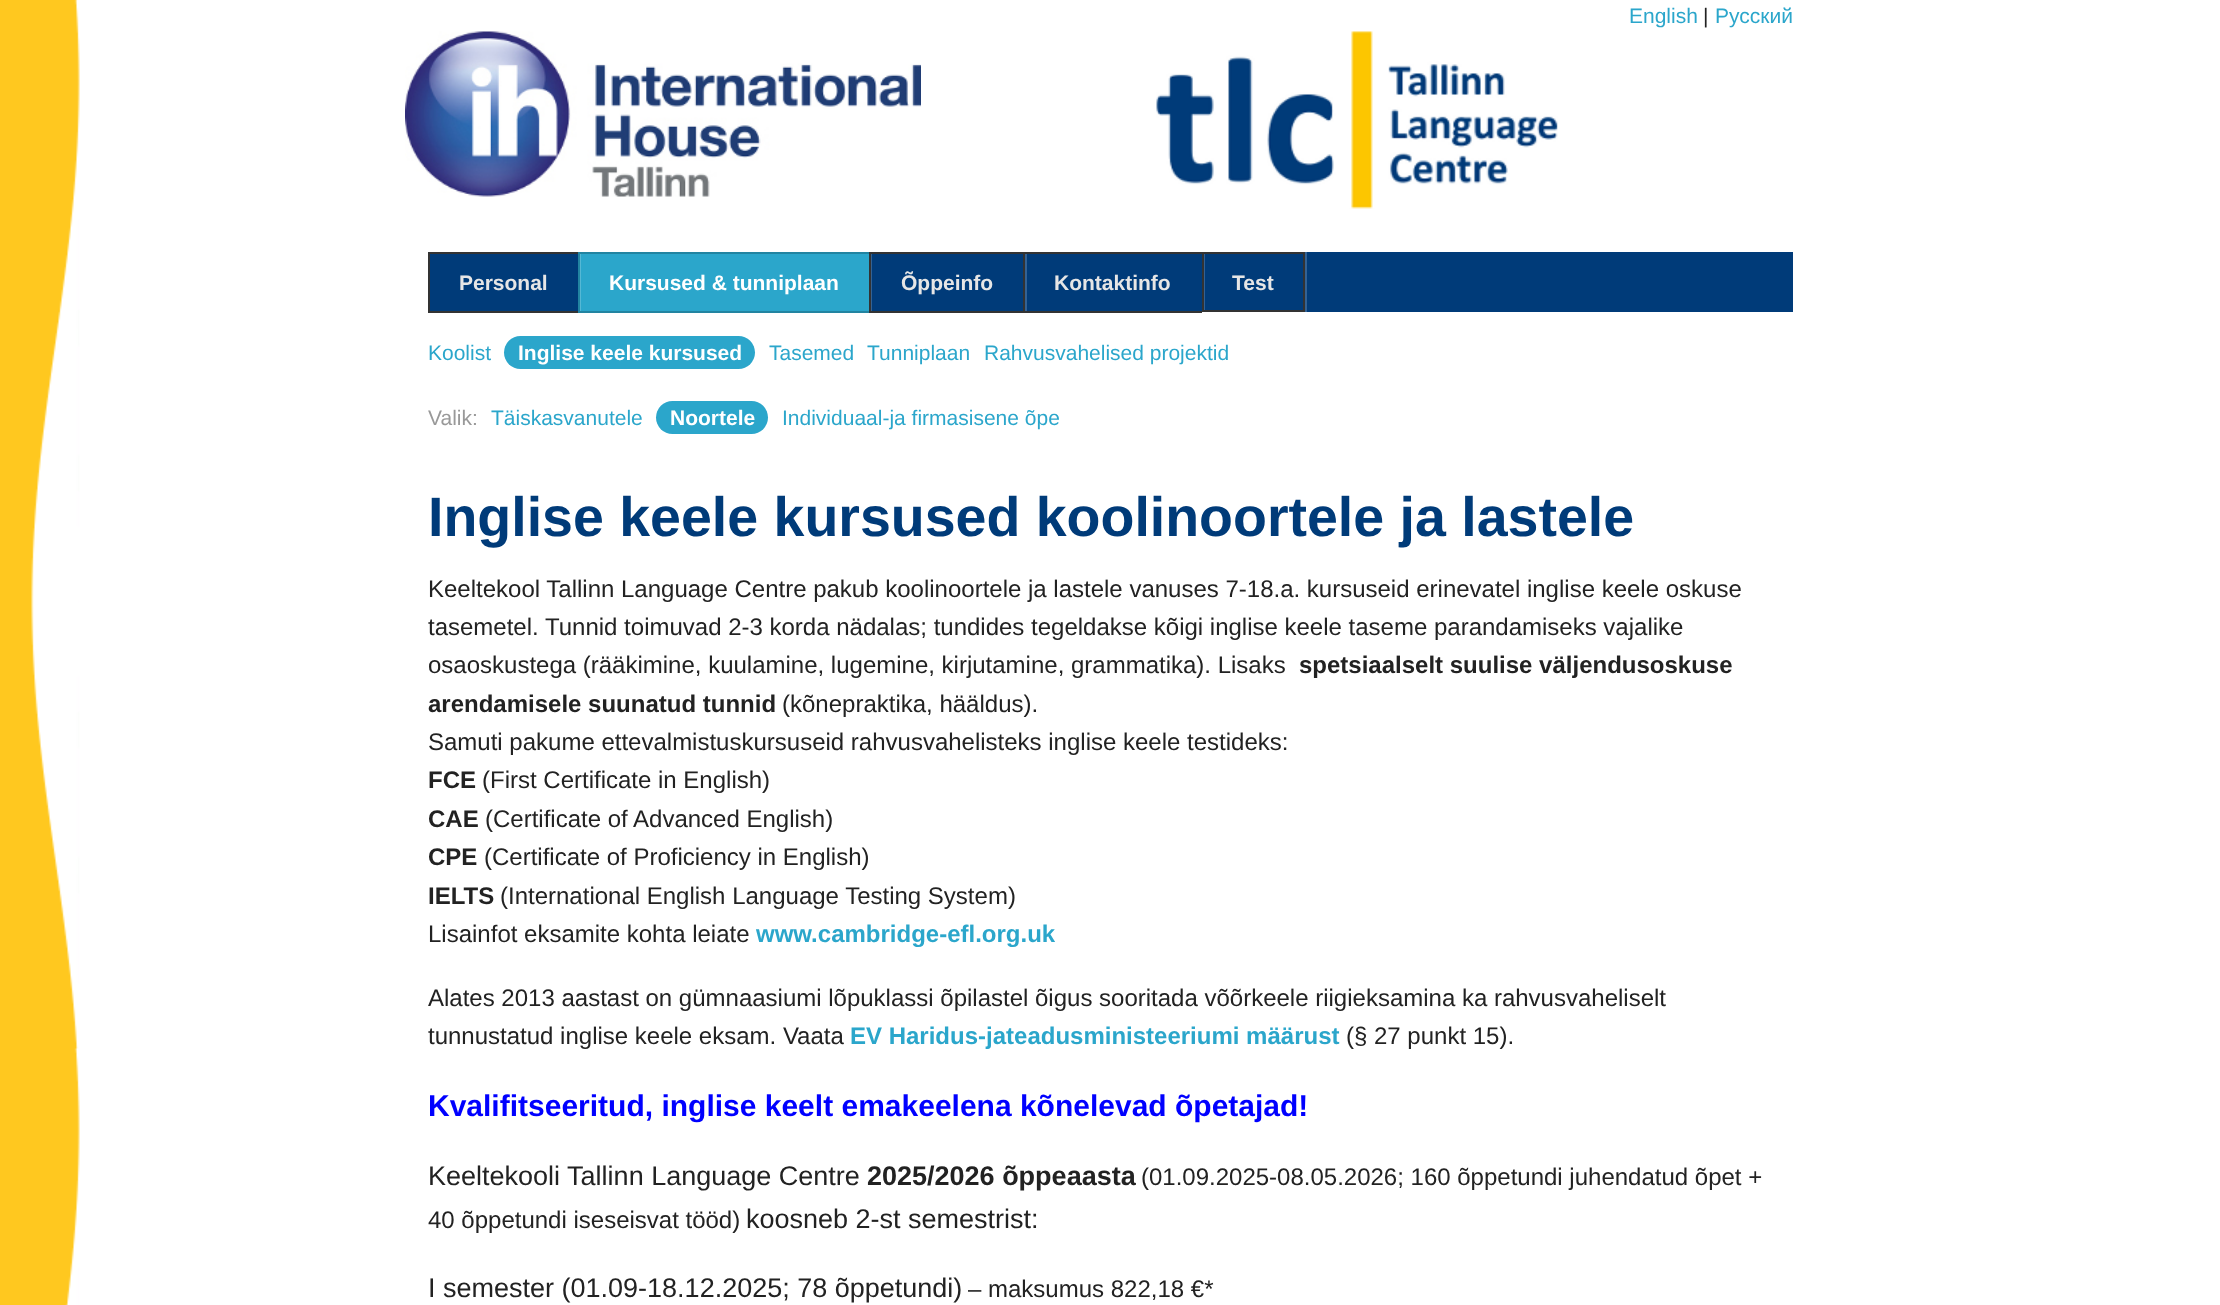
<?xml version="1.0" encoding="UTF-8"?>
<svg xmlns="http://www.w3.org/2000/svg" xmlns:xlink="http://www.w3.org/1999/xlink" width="2220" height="1305">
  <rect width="100%" height="100%" fill="#ffffff" />
  <image x="0" y="0" width="80" height="1305" xlink:href="image1.png" />
  <image x="405" y="31" width="516" height="166" xlink:href="image2.png" />
  <image x="1156" y="31" width="402" height="178" xlink:href="image3.png" />
  <rect x="430" y="252" width="1363" height="60" fill="#003b79" />
  <rect x="428" y="252" width="150" height="2" fill="#333333" />
  <rect x="428" y="311" width="150" height="2" fill="#333333" />
  <rect x="428" y="252" width="2" height="60" fill="#333333" />
  <rect x="581" y="254" width="288" height="57" fill="#2ba6cb" />
  <rect x="580" y="254" width="1" height="57" fill="#55b8d5" />
  <rect x="578" y="252" width="291" height="2" fill="#2284a1" />
  <rect x="578" y="311" width="291" height="2" fill="#2284a1" />
  <rect x="578" y="252" width="2" height="60" fill="#2284a1" />
  <rect x="871" y="254" width="1" height="57" fill="#336294" />
  <rect x="869" y="252" width="333" height="2" fill="#333333" />
  <rect x="869" y="311" width="333" height="2" fill="#333333" />
  <rect x="869" y="252" width="2" height="60" fill="#333333" />
  <rect x="1025" y="254" width="2" height="57" fill="#336294" />
  <rect x="1023" y="252" width="2" height="60" fill="#333333" />
  <rect x="1305" y="252" width="2" height="60" fill="#336294" />
  <rect x="1204" y="254" width="1" height="57" fill="#336294" />
  <rect x="1203" y="253" width="101" height="58" fill="none" stroke="#333333" stroke-width="2" />
  <rect x="504" y="336" width="251" height="33" rx="16.5" fill="#2ba6cb" />
  <rect x="656" y="401" width="112" height="33" rx="16.5" fill="#2ba6cb" />
  <text x="1629" y="23" style="font-family: Liberation Sans; font-size: 21px; fill: #2ba6cb">English</text>
  <text x="1703" y="23" style="font-family: Liberation Sans; font-size: 21px; fill: #222222">|</text>
  <text x="1715" y="23" style="font-family: Liberation Sans; font-size: 21px; fill: #2ba6cb">Pусский</text>
  <text x="459" y="290" style="font-family: Liberation Sans; font-size: 21px; font-weight: bold; fill: #e6e6e6">Personal</text>
  <text x="609" y="290" style="font-family: Liberation Sans; font-size: 21px; font-weight: bold; fill: #ffffff">Kursused &amp; tunniplaan</text>
  <text x="901" y="290" style="font-family: Liberation Sans; font-size: 21px; font-weight: bold; fill: #e6e6e6">Õppeinfo</text>
  <text x="1054" y="290" style="font-family: Liberation Sans; font-size: 21px; font-weight: bold; fill: #e6e6e6">Kontaktinfo</text>
  <text x="1232" y="290" style="font-family: Liberation Sans; font-size: 21px; font-weight: bold; fill: #e6e6e6">Test</text>
  <text x="428" y="360" style="font-family: Liberation Sans; font-size: 21px; fill: #2ba6cb">Koolist</text>
  <text x="518" y="360" style="font-family: Liberation Sans; font-size: 21px; font-weight: bold; fill: #ffffff">Inglise keele kursused</text>
  <text x="769" y="360" style="font-family: Liberation Sans; font-size: 21px; fill: #2ba6cb">Tasemed</text>
  <text x="867" y="360" style="font-family: Liberation Sans; font-size: 21px; fill: #2ba6cb">Tunniplaan</text>
  <text x="984" y="360" style="font-family: Liberation Sans; font-size: 21px; fill: #2ba6cb">Rahvusvahelised projektid</text>
  <text x="428" y="425" style="font-family: Liberation Sans; font-size: 21px; fill: #999999">Valik:</text>
  <text x="491" y="425" style="font-family: Liberation Sans; font-size: 21px; fill: #2ba6cb">Täiskasvanutele</text>
  <text x="670" y="425" style="font-family: Liberation Sans; font-size: 21px; font-weight: bold; fill: #ffffff">Noortele</text>
  <text x="782" y="425" style="font-family: Liberation Sans; font-size: 21px; fill: #2ba6cb">Individuaal-ja firmasisene õpe</text>
  <text x="428" y="536" style="font-family: Liberation Sans; font-size: 55.5px; font-weight: bold; fill: #003b79">Inglise keele kursused koolinoortele ja lastele</text>
  <text x="428" y="597" style="font-family: Liberation Sans; font-size: 24px; fill: #222222">Keeltekool Tallinn Language Centre pakub koolinoortele ja lastele vanuses 7-18.a. kursuseid erinevatel inglise keele oskuse</text>
  <text x="428" y="635" style="font-family: Liberation Sans; font-size: 24px; fill: #222222">tasemetel. Tunnid toimuvad 2-3 korda nädalas; tundides tegeldakse kõigi inglise keele taseme parandamiseks vajalike</text>
  <text x="428" y="673" style="font-family: Liberation Sans; font-size: 24px; fill: #222222">osaoskustega (rääkimine, kuulamine, lugemine, kirjutamine, grammatika). Lisaks</text>
  <text x="1299" y="673" style="font-family: Liberation Sans; font-size: 24px; font-weight: bold; fill: #222222">spetsiaalselt suulise väljendusoskuse</text>
  <text x="428" y="712" style="font-family: Liberation Sans; font-size: 24px; font-weight: bold; fill: #222222">arendamisele suunatud tunnid</text>
  <text x="782" y="712" style="font-family: Liberation Sans; font-size: 24px; fill: #222222">(kõnepraktika, hääldus).</text>
  <text x="428" y="750" style="font-family: Liberation Sans; font-size: 24px; fill: #222222">Samuti pakume ettevalmistuskursuseid rahvusvahelisteks inglise keele testideks:</text>
  <text x="428" y="788" style="font-family: Liberation Sans; font-size: 24px; font-weight: bold; fill: #222222">FCE</text>
  <text x="482" y="788" style="font-family: Liberation Sans; font-size: 24px; fill: #222222">(First Certificate in English)</text>
  <text x="428" y="827" style="font-family: Liberation Sans; font-size: 24px; font-weight: bold; fill: #222222">CAE</text>
  <text x="485" y="827" style="font-family: Liberation Sans; font-size: 24px; fill: #222222">(Certificate of Advanced English)</text>
  <text x="428" y="865" style="font-family: Liberation Sans; font-size: 24px; font-weight: bold; fill: #222222">CPE</text>
  <text x="484" y="865" style="font-family: Liberation Sans; font-size: 24px; fill: #222222">(Certificate of Proficiency in English)</text>
  <text x="428" y="904" style="font-family: Liberation Sans; font-size: 24px; font-weight: bold; fill: #222222">IELTS</text>
  <text x="500" y="904" style="font-family: Liberation Sans; font-size: 24px; fill: #222222">(International English Language Testing System)</text>
  <text x="428" y="942" style="font-family: Liberation Sans; font-size: 24px; fill: #222222">Lisainfot eksamite kohta leiate</text>
  <text x="756" y="942" style="font-family: Liberation Sans; font-size: 24px; font-weight: bold; fill: #2ba6cb">www.cambridge-efl.org.uk</text>
  <text x="428" y="1006" style="font-family: Liberation Sans; font-size: 24px; fill: #222222">Alates 2013 aastast on gümnaasiumi lõpuklassi õpilastel õigus sooritada võõrkeele riigieksamina ka rahvusvaheliselt</text>
  <text x="428" y="1044" style="font-family: Liberation Sans; font-size: 24px; fill: #222222">tunnustatud inglise keele eksam. Vaata</text>
  <text x="850" y="1044" style="font-family: Liberation Sans; font-size: 24px; font-weight: bold; fill: #2ba6cb">EV Haridus-jateadusministeeriumi määrust</text>
  <text x="1346" y="1044" style="font-family: Liberation Sans; font-size: 24px; fill: #222222">(§ 27 punkt 15).</text>
  <text x="428" y="1116" style="font-family: Liberation Sans; font-size: 30px; font-weight: bold; fill: #0000ff">Kvalifitseeritud, inglise keelt emakeelena kõnelevad õpetajad!</text>
  <text x="428" y="1185" style="font-family: Liberation Sans; font-size: 27px; fill: #222222">Keeltekooli Tallinn Language Centre</text>
  <text x="867" y="1185" style="font-family: Liberation Sans; font-size: 27px; font-weight: bold; fill: #222222">2025/2026 õppeaasta</text>
  <text x="1141" y="1185" style="font-family: Liberation Sans; font-size: 24px; fill: #222222">(01.09.2025-08.05.2026; 160 õppetundi juhendatud õpet +</text>
  <text x="428" y="1228" style="font-family: Liberation Sans; font-size: 24px; fill: #222222">40 õppetundi iseseisvat tööd)</text>
  <text x="746" y="1228" style="font-family: Liberation Sans; font-size: 27px; fill: #222222">koosneb 2-st semestrist:</text>
  <text x="428" y="1297" style="font-family: Liberation Sans; font-size: 27px; fill: #222222">I semester (01.09-18.12.2025; 78 õppetundi)</text>
  <text x="968" y="1297" style="font-family: Liberation Sans; font-size: 24px; fill: #222222">– maksumus 822,18 €*</text>
</svg>
